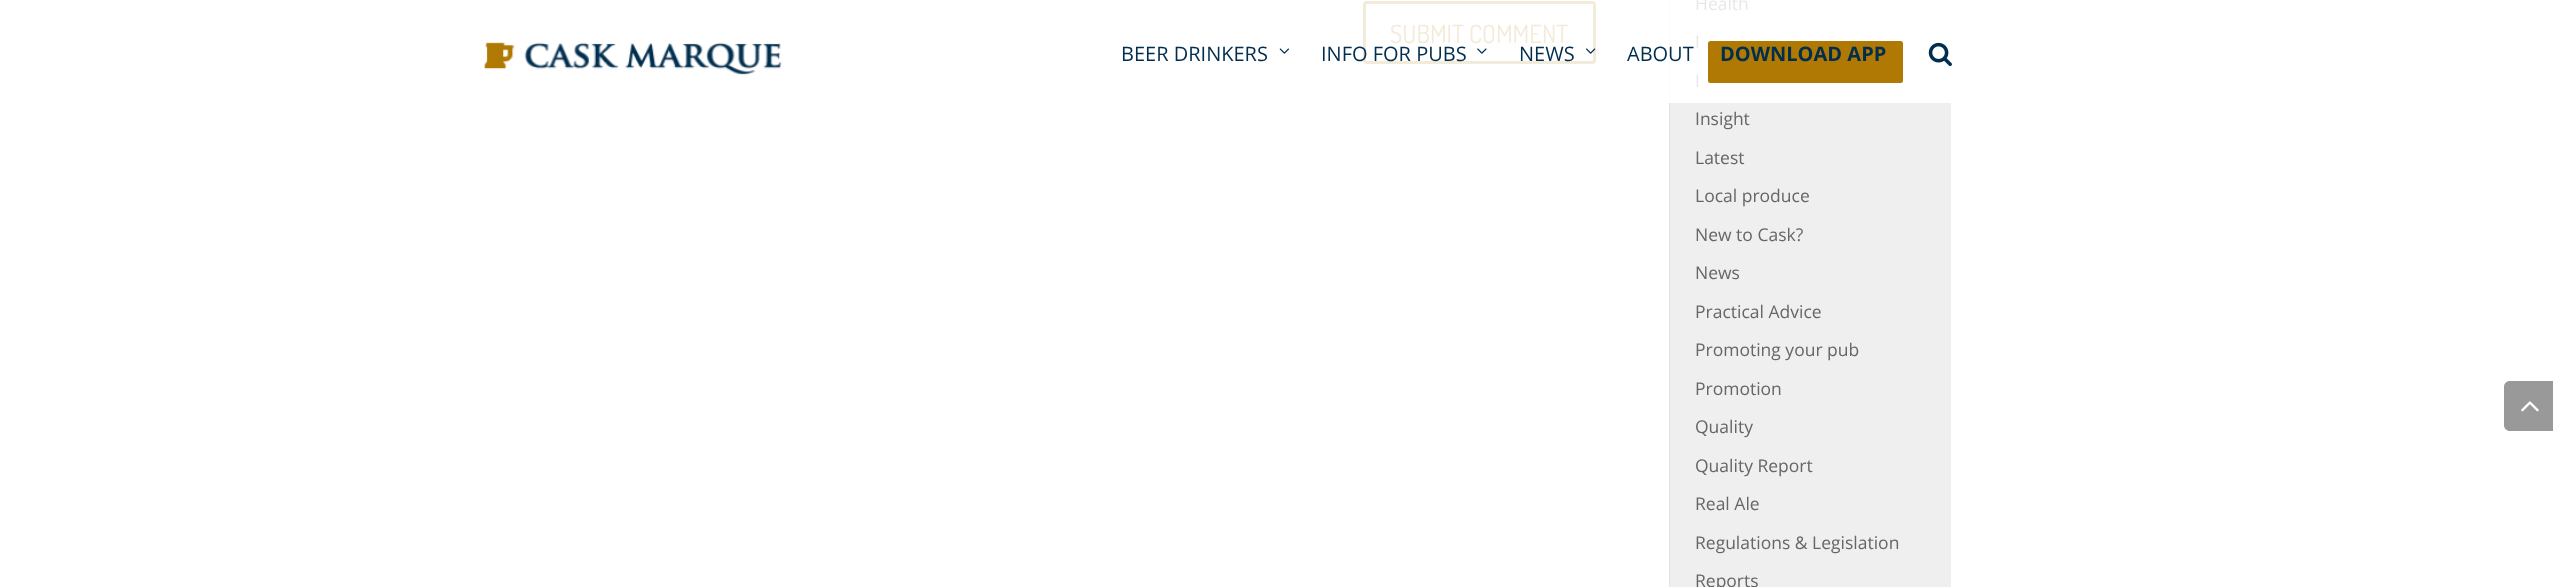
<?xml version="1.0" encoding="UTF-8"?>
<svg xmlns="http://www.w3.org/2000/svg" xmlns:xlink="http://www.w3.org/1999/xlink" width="2553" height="587">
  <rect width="100%" height="100%" fill="#ffffff" />
  <rect x="1364.5" y="2.5" width="230" height="60" rx="2.5" fill="none" stroke="#f3ebd9" stroke-width="3" />
  <rect x="1670" y="103" width="281" height="484" fill="#efefef" />
  <rect x="1669" y="103" width="1" height="484" fill="#e2e2e2" />
  <rect x="1669" width="1" height="103" fill="#fbfbfb" />
  <path d="M 2510 381 h 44 v 50 h -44 c -3.5 0 -6 -2.5 -6 -6 v -38 c 0 -3.5 2.5 -6 6 -6 z" fill="#999999" />
  <image x="2521" y="401" width="18" height="11" xlink:href="image1.png" />
  <image x="484" y="42" width="298" height="33" xlink:href="image2.png" />
  <image x="1279" y="48" width="10" height="6" xlink:href="image3.png" />
  <image x="1477" y="48" width="10" height="6" xlink:href="image4.png" />
  <image x="1586" y="48" width="10" height="6" xlink:href="image5.png" />
  <rect x="1708" y="41" width="195" height="42" rx="2.5" fill="#af7903" />
  <image x="1928" y="42" width="24" height="25" xlink:href="image6.png" />
  <text x="1390" y="43" style="font-family: Dosis; font-size: 25px; fill: #f3ebd9">SUBMIT COMMENT</text>
  <text x="1695" y="10" style="font-family: Open Sans; font-size: 17.5px; fill: #e8e8e8">Health</text>
  <text x="1695" y="48" style="font-family: Open Sans; font-size: 17.5px; fill: #e8e8e8">I</text>
  <text x="1695" y="87" style="font-family: Open Sans; font-size: 17.5px; fill: #e8e8e8">I</text>
  <text x="1695" y="125" style="font-family: Open Sans; font-size: 17.5px; fill: #666666">Insight</text>
  <text x="1695" y="164" style="font-family: Open Sans; font-size: 17.5px; fill: #666666">Latest</text>
  <text x="1695" y="202" style="font-family: Open Sans; font-size: 17.5px; fill: #666666">Local produce</text>
  <text x="1695" y="241" style="font-family: Open Sans; font-size: 17.5px; fill: #666666">New to Cask?</text>
  <text x="1695" y="279" style="font-family: Open Sans; font-size: 17.5px; fill: #666666">News</text>
  <text x="1695" y="318" style="font-family: Open Sans; font-size: 17.5px; fill: #666666">Practical Advice</text>
  <text x="1695" y="356" style="font-family: Open Sans; font-size: 17.5px; fill: #666666">Promoting your pub</text>
  <text x="1695" y="395" style="font-family: Open Sans; font-size: 17.5px; fill: #666666">Promotion</text>
  <text x="1695" y="433" style="font-family: Open Sans; font-size: 17.5px; fill: #666666">Quality</text>
  <text x="1695" y="472" style="font-family: Open Sans; font-size: 17.5px; fill: #666666">Quality Report</text>
  <text x="1695" y="510" style="font-family: Open Sans; font-size: 17.5px; fill: #666666">Real Ale</text>
  <text x="1695" y="549" style="font-family: Open Sans; font-size: 17.5px; fill: #666666">Regulations &amp; Legislation</text>
  <text x="1695" y="587" style="font-family: Open Sans; font-size: 17.5px; fill: #666666">Reports</text>
  <text x="1121" y="61" style="font-family: Open Sans; font-size: 20px; fill: #012e4f">BEER DRINKERS</text>
  <text x="1321" y="61" style="font-family: Open Sans; font-size: 20px; fill: #012e4f">INFO FOR PUBS</text>
  <text x="1519" y="61" style="font-family: Open Sans; font-size: 20px; fill: #012e4f">NEWS</text>
  <text x="1627" y="61" style="font-family: Open Sans; font-size: 20px; fill: #012e4f">ABOUT</text>
  <text x="1720" y="61" style="font-family: Open Sans; font-size: 20px; font-weight: bold; fill: #012e4f">DOWNLOAD APP</text>
</svg>
